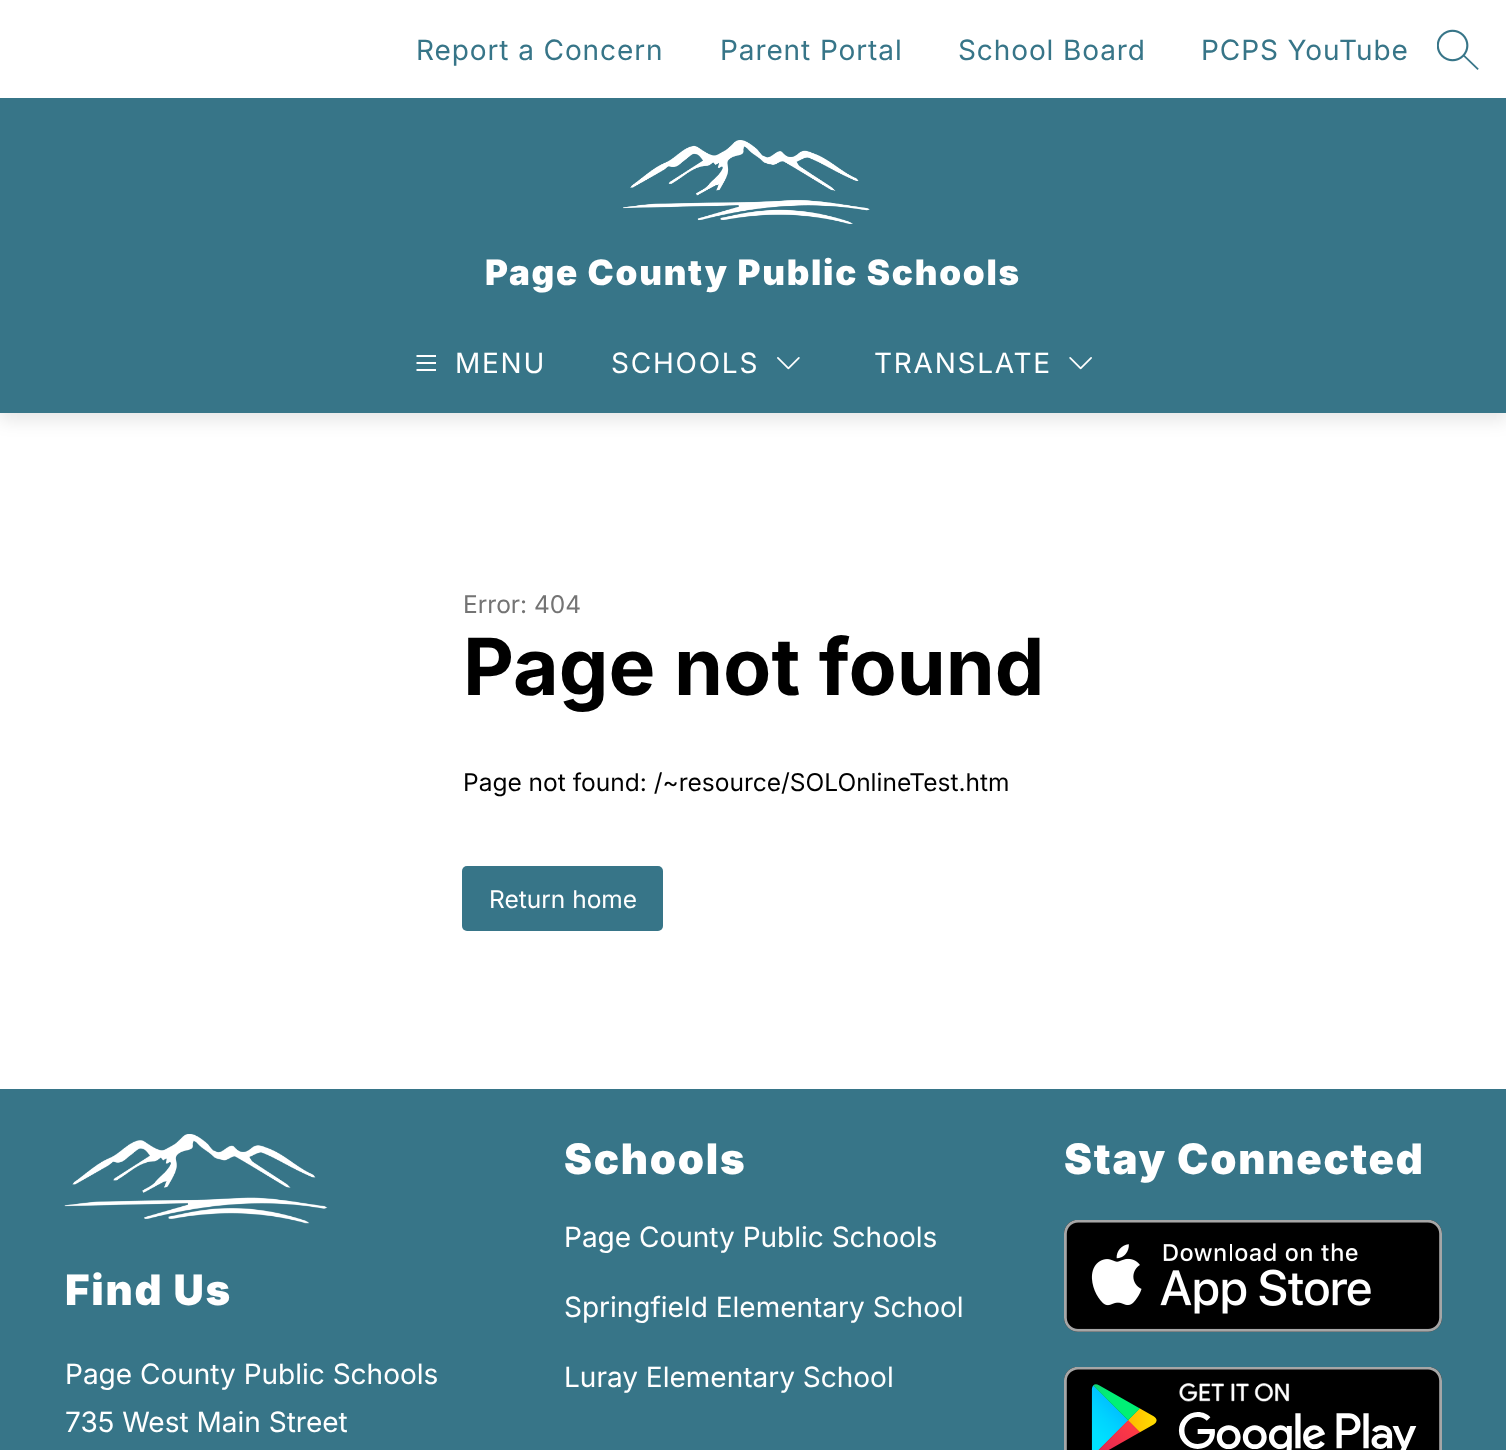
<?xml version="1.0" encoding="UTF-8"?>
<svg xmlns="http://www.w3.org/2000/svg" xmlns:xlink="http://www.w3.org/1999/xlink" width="1506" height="1450">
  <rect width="100%" height="100%" fill="#ffffff" />
  <rect y="7" width="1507" height="413" fill="#000000" fill-opacity="0.1" filter="blur(9px)" />
  <rect y="98" width="1506" height="315" fill="#377588" />
  <rect width="1506" height="98" fill="#ffffff" />
  <image x="1437" y="29" width="42" height="41" xlink:href="image1.png" />
  <image x="623" y="140" width="247" height="84" xlink:href="image2.png" />
  <path d="M 416.5 355 h 19.5 v 2 h -19.5 z m 0 7 h 19.5 v 2 h -19.5 z m 19.5 7 h -19.5 v 2 h 19.5 z" fill="#ffffff" fill-rule="evenodd" />
  <image x="777" y="357" width="23" height="13" xlink:href="image3.png" />
  <image x="1069" y="357" width="23" height="13" xlink:href="image4.png" />
  <rect x="462" y="866" width="201" height="65" rx="5" fill="#377588" />
  <rect y="1089" width="1506" height="361" fill="#377588" />
  <image x="1064" y="1220" width="378" height="112" xlink:href="image5.png" />
  <image x="1064" y="1367" width="378" height="83" xlink:href="image6.png" />
  <image x="64" y="1134" width="264" height="90" xlink:href="image7.png" />
  <text x="416" y="60" style="font-family: Inter; font-size: 28px; letter-spacing: 0.9px; fill: #377588">Report a Concern</text>
  <text x="720" y="60" style="font-family: Inter; font-size: 28px; letter-spacing: 0.9px; fill: #377588">Parent Portal</text>
  <text x="958" y="60" style="font-family: Inter; font-size: 28px; letter-spacing: 0.9px; fill: #377588">School Board</text>
  <text x="1201" y="60" style="font-family: Inter; font-size: 28px; letter-spacing: 0.9px; fill: #377588">PCPS YouTube</text>
  <text x="485" y="285" style="font-family: Inter; font-size: 35px; font-weight: 900; letter-spacing: 1.75px; fill: #ffffff">Page County Public Schools</text>
  <text x="455" y="373" style="font-family: Inter; font-size: 28px; letter-spacing: 1.75px; fill: #ffffff">MENU</text>
  <text x="611" y="373" style="font-family: Inter; font-size: 28px; letter-spacing: 1.75px; fill: #ffffff">SCHOOLS</text>
  <text x="874" y="373" style="font-family: Inter; font-size: 28px; letter-spacing: 1.75px; fill: #ffffff">TRANSLATE</text>
  <text x="463" y="613" style="font-family: Inter; font-size: 24.5px; fill: #747474">Error: 404</text>
  <text x="463" y="695" style="font-family: Inter; font-size: 78.75px; font-weight: bold; fill: #000000">Page not found</text>
  <text x="463" y="791" style="font-family: Inter; font-size: 24.5px; fill: #000000">Page not found: /~resource/SOLOnlineTest.htm</text>
  <text x="489" y="908" style="font-family: Inter; font-size: 24.5px; fill: #ffffff">Return home</text>
  <text x="564" y="1174" style="font-family: Inter; font-size: 42px; font-weight: 900; letter-spacing: 1.75px; fill: #ffffff">Schools</text>
  <text x="564" y="1247" style="font-family: Inter; font-size: 28px; fill: #ffffff">Page County Public Schools</text>
  <text x="564" y="1317" style="font-family: Inter; font-size: 28px; fill: #ffffff">Springfield Elementary School</text>
  <text x="564" y="1387" style="font-family: Inter; font-size: 28px; fill: #ffffff">Luray Elementary School</text>
  <text x="1064" y="1174" style="font-family: Inter; font-size: 42px; font-weight: 900; letter-spacing: 1.75px; fill: #ffffff">Stay Connected</text>
  <text x="65" y="1305" style="font-family: Inter; font-size: 42px; font-weight: 900; letter-spacing: 1.75px; fill: #ffffff">Find Us</text>
  <text x="65" y="1384" style="font-family: Inter; font-size: 28px; fill: #ffffff">Page County Public Schools</text>
  <text x="65" y="1432" style="font-family: Inter; font-size: 28px; fill: #ffffff">735 West Main Street</text>
</svg>
